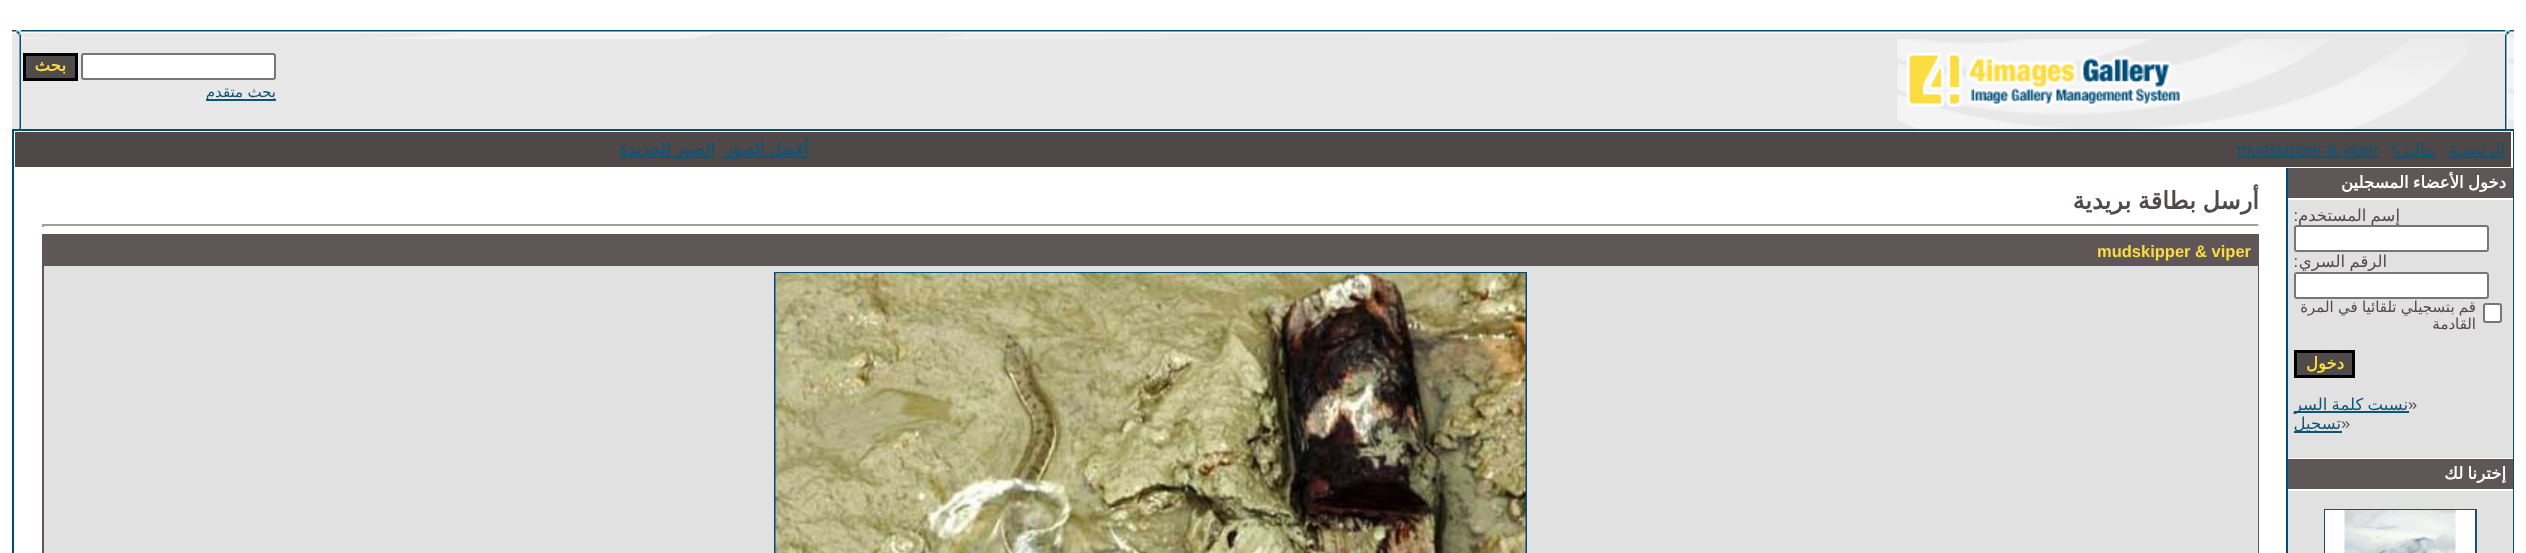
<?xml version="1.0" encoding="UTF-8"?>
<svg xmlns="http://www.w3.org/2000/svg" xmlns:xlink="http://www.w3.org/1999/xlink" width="2526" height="553">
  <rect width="100%" height="100%" fill="#ffffff" />
  <rect x="12" y="30" width="2498" height="99" fill="#e8e8e8" />
  <image x="2505" y="30" width="9" height="9" xlink:href="image1.png" />
  <image x="21" y="30" width="2484" height="9" xlink:href="image2.png" />
  <image x="12" y="30" width="9" height="9" xlink:href="image3.png" />
  <image x="2505" y="39" width="9" height="90" xlink:href="image4.png" />
  <image x="1897" y="39" width="570" height="90" xlink:href="image5.png" />
  <rect x="82" y="54" width="193" height="25" rx="2" fill="#ffffff" stroke="#767676" stroke-width="2" />
  <rect x="24.5" y="54.5" width="52" height="25" fill="#504a4a" stroke="#000000" stroke-width="3" />
  <rect x="206" y="99" width="70" height="2" fill="#0f5475" />
  <image x="19" y="39" width="2" height="90" xlink:href="image6.png" />
  <rect x="12" y="129" width="2502" height="424" fill="#004c75" />
  <rect x="14" y="131" width="2499" height="422" fill="#ffffff" />
  <rect x="15" y="132" width="2496" height="35" fill="#4e4848" />
  <rect x="2448" y="156" width="57" height="2" fill="#0f5475" />
  <rect x="2393" y="156" width="42" height="2" fill="#0f5475" />
  <rect x="2237" y="156" width="141" height="2" fill="#0f5475" />
  <rect x="725" y="156" width="84" height="2" fill="#0f5475" />
  <rect x="620" y="156" width="94" height="2" fill="#0f5475" />
  <rect x="2288" y="168" width="225" height="30" fill="#5f5757" />
  <rect x="2288" y="200" width="225" height="258" fill="#e1e1e1" />
  <rect x="2295" y="226" width="193" height="25" rx="2" fill="#ffffff" stroke="#767676" stroke-width="2" />
  <rect x="2295" y="273" width="193" height="25" rx="2" fill="#ffffff" stroke="#767676" stroke-width="2" />
  <rect x="2484" y="304" width="17" height="18" rx="2" fill="#ffffff" stroke="#767676" stroke-width="2" />
  <rect x="2295.5" y="351.5" width="58" height="25" fill="#504a4a" stroke="#000000" stroke-width="3" />
  <rect x="2294" y="411" width="115" height="2" fill="#0f5475" />
  <rect x="2294" y="431" width="48" height="2" fill="#0f5475" />
  <rect x="2288" y="459" width="225" height="30" fill="#5f5757" />
  <rect x="2288" y="491" width="225" height="62" fill="#e1e1e1" />
  <rect x="2325" y="510" width="151" height="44" fill="none" stroke="#0f5475" stroke-width="2" />
  <image x="2325" y="510" width="150" height="43" xlink:href="image7.png" />
  <rect x="2286" y="168" width="2" height="385" fill="#004c75" />
  <rect x="42" y="224" width="2217" height="2" fill="#9f9f9f" />
  <rect x="2258" y="224" width="2" height="3" fill="#eeeeee" />
  <rect x="42" y="224" width="2" height="3" fill="#9f9f9f" />
  <rect x="42" y="234" width="2217" height="319" fill="#5f5757" />
  <rect x="44" y="266" width="2214" height="287" fill="#e1e1e1" />
  <rect x="775" y="273" width="751" height="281" fill="none" stroke="#004c75" stroke-width="2" />
  <image x="775" y="273" width="751" height="280" xlink:href="image8.png" />
  <text x="66" y="71" style="font-family: DejaVu Sans; font-size: 16.5px; font-weight: bold; direction: rtl; fill: #fcdc43">بحث</text>
  <text x="276" y="97" word-spacing="-0.5" style="font-family: DejaVu Sans; font-size: 15px; direction: rtl; fill: #0f5475">بحث متقدم</text>
  <text x="2505" y="155" style="font-family: DejaVu Sans; font-size: 16.5px; direction: rtl; fill: #0f5475">الرئيسية</text>
  <text x="2434" y="155" style="font-family: DejaVu Sans; font-size: 16.5px; direction: rtl; fill: #0f5475">ماليزيا</text>
  <text x="2237" y="155" style="font-family: Liberation Sans; font-size: 16.5px; fill: #0f5475">mudskipper &amp; viper</text>
  <text x="808" y="155" word-spacing="-1" style="font-family: DejaVu Sans; font-size: 16.5px; font-weight: bold; direction: rtl; fill: #0f5475">أفضل الصور</text>
  <text x="715" y="155" word-spacing="-1" style="font-family: DejaVu Sans; font-size: 16.5px; font-weight: bold; direction: rtl; fill: #0f5475">الصور الجديدة</text>
  <text x="2506" y="188" word-spacing="-1" style="font-family: DejaVu Sans; font-size: 16.5px; font-weight: bold; direction: rtl; fill: #ffffff">دخول الأعضاء المسجلين</text>
  <text x="2400" y="221" word-spacing="-1" style="font-family: DejaVu Sans; font-size: 16.5px; direction: rtl; fill: #504a4a">إسم المستخدم</text>
  <text x="2298" y="221" style="font-family: Liberation Sans; font-size: 16.5px; direction: rtl; fill: #504a4a">:</text>
  <text x="2387" y="267" word-spacing="-1" style="font-family: DejaVu Sans; font-size: 16.5px; direction: rtl; fill: #504a4a">الرقم السري</text>
  <text x="2298" y="267" style="font-family: Liberation Sans; font-size: 16.5px; direction: rtl; fill: #504a4a">:</text>
  <text x="2476" y="312" word-spacing="-0.5" style="font-family: DejaVu Sans; font-size: 15px; direction: rtl; fill: #504a4a">قم بتسجيلي تلقائيا في المرة</text>
  <text x="2476" y="329" style="font-family: DejaVu Sans; font-size: 15px; direction: rtl; fill: #504a4a">القادمة</text>
  <text x="2344" y="369" style="font-family: DejaVu Sans; font-size: 16.5px; font-weight: bold; direction: rtl; fill: #fcdc43">دخول</text>
  <text x="2408" y="410" style="font-family: Liberation Sans; font-size: 16.5px; fill: #504a4a">»</text>
  <text x="2408" y="410" word-spacing="-1" style="font-family: DejaVu Sans; font-size: 16.5px; direction: rtl; fill: #0f5475">نسيت كلمة السر</text>
  <text x="2341" y="429" style="font-family: Liberation Sans; font-size: 16.5px; fill: #504a4a">»</text>
  <text x="2341" y="429" style="font-family: DejaVu Sans; font-size: 16.5px; direction: rtl; fill: #0f5475">تسجيل</text>
  <text x="2506" y="479" word-spacing="-1" style="font-family: DejaVu Sans; font-size: 16.5px; font-weight: bold; direction: rtl; fill: #ffffff">إخترنا لك</text>
  <text x="2259" y="209" word-spacing="-1" style="font-family: DejaVu Sans; font-size: 24px; font-weight: bold; direction: rtl; fill: #504a4a">أرسل بطاقة بريدية</text>
  <text x="2097" y="257" style="font-family: Liberation Sans; font-size: 16.5px; font-weight: bold; fill: #fcdc43">mudskipper &amp; viper</text>
</svg>
